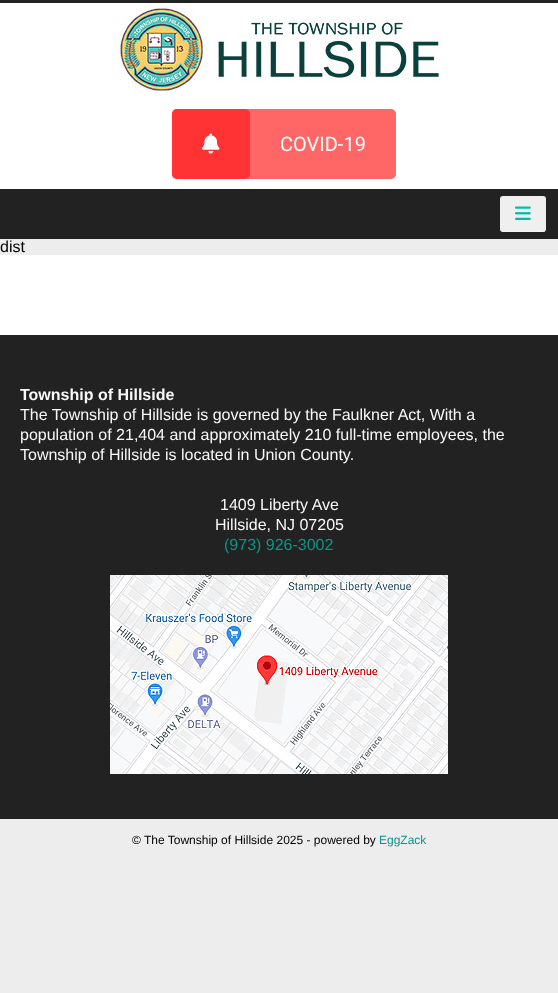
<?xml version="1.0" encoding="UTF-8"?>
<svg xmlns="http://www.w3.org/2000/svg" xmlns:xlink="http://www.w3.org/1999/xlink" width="558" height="993">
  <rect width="100%" height="100%" fill="#ededed" />
  <rect width="558" height="3" fill="#222222" />
  <rect y="3" width="558" height="186" fill="#ffffff" />
  <image x="116" y="4" width="327" height="87" xlink:href="image1.png" />
  <rect x="172" y="109" width="224" height="70" rx="5" fill="#ff6666" />
  <rect x="172" y="109" width="78" height="70" rx="5" fill="#ff3333" />
  <image x="202" y="133" width="18" height="21" xlink:href="image2.png" />
  <rect y="189" width="558" height="50" fill="#222222" />
  <rect x="500" y="196" width="46" height="36" rx="3" fill="#efefef" />
  <rect x="502" y="231" width="43" height="1" fill="#ffffff" fill-opacity="0.3" />
  <image x="515" y="206" width="16" height="14" xlink:href="image3.png" />
  <rect y="255" width="558" height="80" fill="#ffffff" />
  <rect y="335" width="558" height="484" fill="#222222" />
  <image x="110" y="575" width="338" height="199" xlink:href="image4.png" />
  <text x="280" y="151" style="font-family: Roboto; font-size: 20px; fill: #ffffff">COVID-19</text>
  <text x="0" y="252" style="font-family: Liberation Sans; font-size: 16px; fill: #000000">dist</text>
  <text x="20" y="400" style="font-family: Liberation Sans; font-size: 16px; font-weight: bold; fill: #f8f8f8">Township of Hillside</text>
  <text x="20" y="420" style="font-family: Liberation Sans; font-size: 16px; fill: #f8f8f8">The Township of Hillside is governed by the Faulkner Act, With a</text>
  <text x="20" y="440" style="font-family: Liberation Sans; font-size: 16px; fill: #f8f8f8">population of 21,404 and approximately 210 full-time employees, the</text>
  <text x="20" y="460" style="font-family: Liberation Sans; font-size: 16px; fill: #f8f8f8">Township of Hillside is located in Union County.</text>
  <text x="220" y="510" style="font-family: Liberation Sans; font-size: 16px; fill: #f8f8f8">1409 Liberty Ave</text>
  <text x="215" y="530" style="font-family: Liberation Sans; font-size: 16px; fill: #f8f8f8">Hillside, NJ 07205</text>
  <text x="224" y="550" style="font-family: Liberation Sans; font-size: 16px; fill: #099587">(973) 926-3002</text>
  <text x="132" y="844" style="font-family: Liberation Sans; font-size: 12px; fill: #000000">© The Township of Hillside 2025 - powered by</text>
  <text x="379" y="844" style="font-family: Liberation Sans; font-size: 12px; fill: #099587">EggZack</text>
</svg>
